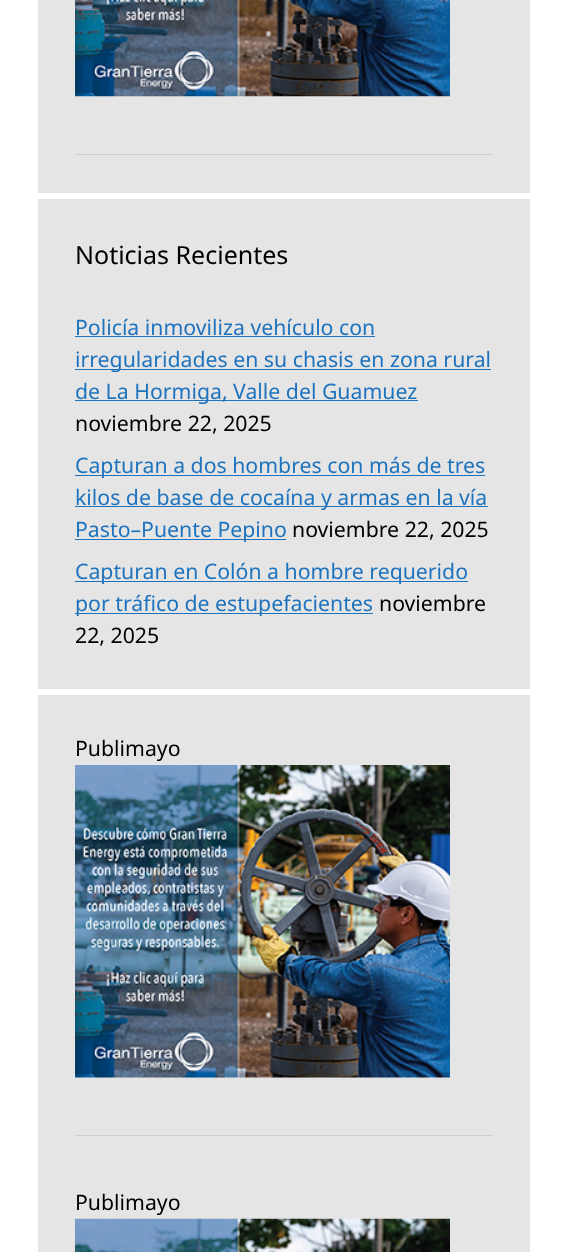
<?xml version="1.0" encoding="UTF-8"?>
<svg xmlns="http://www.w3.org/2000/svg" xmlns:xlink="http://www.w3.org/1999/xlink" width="567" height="1252">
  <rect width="100%" height="100%" fill="#ffffff" />
  <rect x="38" width="492" height="193" fill="#e6e5e5" />
  <image x="75" y="0" width="375" height="97" xlink:href="image1.png" />
  <rect x="75" y="154" width="418" height="1" fill="#cfcece" />
  <rect x="38" y="199" width="492" height="490" fill="#e6e5e5" />
  <rect x="75" y="336" width="300" height="1" fill="#1e73be" />
  <rect x="75" y="369" width="416" height="1" fill="#1e73be" />
  <rect x="75" y="400" width="343" height="1" fill="#1e73be" />
  <rect x="75" y="475" width="410" height="1" fill="#1e73be" />
  <rect x="75" y="506" width="413" height="1" fill="#1e73be" />
  <rect x="75" y="539" width="211" height="1" fill="#1e73be" />
  <rect x="75" y="581" width="393" height="1" fill="#1e73be" />
  <rect x="75" y="613" width="298" height="1" fill="#1e73be" />
  <rect x="38" y="695" width="492" height="557" fill="#e6e5e5" />
  <image x="75" y="765" width="375" height="313" xlink:href="image2.png" />
  <rect x="75" y="1135" width="418" height="1" fill="#cfcece" />
  <image x="75" y="1218" width="375" height="34" xlink:href="image3.png" />
  <text x="75" y="264" style="font-family: Noto Sans; font-size: 25px; fill: #000000">Noticias Recientes</text>
  <text x="75" y="335" style="font-family: Noto Sans; font-size: 21.25px; fill: #1e73be">Policía inmoviliza vehículo con</text>
  <text x="75" y="367" style="font-family: Noto Sans; font-size: 21.25px; fill: #1e73be">irregularidades en su chasis en zona rural</text>
  <text x="75" y="399" style="font-family: Noto Sans; font-size: 21.25px; fill: #1e73be">de La Hormiga, Valle del Guamuez</text>
  <text x="75" y="431" style="font-family: Noto Sans; font-size: 21.25px; fill: #000000">noviembre 22, 2025</text>
  <text x="75" y="473" style="font-family: Noto Sans; font-size: 21.25px; fill: #1e73be">Capturan a dos hombres con más de tres</text>
  <text x="75" y="505" style="font-family: Noto Sans; font-size: 21.25px; fill: #1e73be">kilos de base de cocaína y armas en la vía</text>
  <text x="75" y="537" style="font-family: Noto Sans; font-size: 21.25px; fill: #1e73be">Pasto–Puente Pepino</text>
  <text x="292" y="537" style="font-family: Noto Sans; font-size: 21.25px; fill: #000000">noviembre 22, 2025</text>
  <text x="75" y="579" style="font-family: Noto Sans; font-size: 21.25px; fill: #1e73be">Capturan en Colón a hombre requerido</text>
  <text x="75" y="611" style="font-family: Noto Sans; font-size: 21.25px; fill: #1e73be">por tráfico de estupefacientes</text>
  <text x="379" y="611" style="font-family: Noto Sans; font-size: 21.25px; fill: #000000">noviembre</text>
  <text x="75" y="643" style="font-family: Noto Sans; font-size: 21.25px; fill: #000000">22, 2025</text>
  <text x="75" y="756" style="font-family: Noto Sans; font-size: 21.25px; fill: #000000">Publimayo</text>
  <text x="75" y="1210" style="font-family: Noto Sans; font-size: 21.25px; fill: #000000">Publimayo</text>
</svg>
